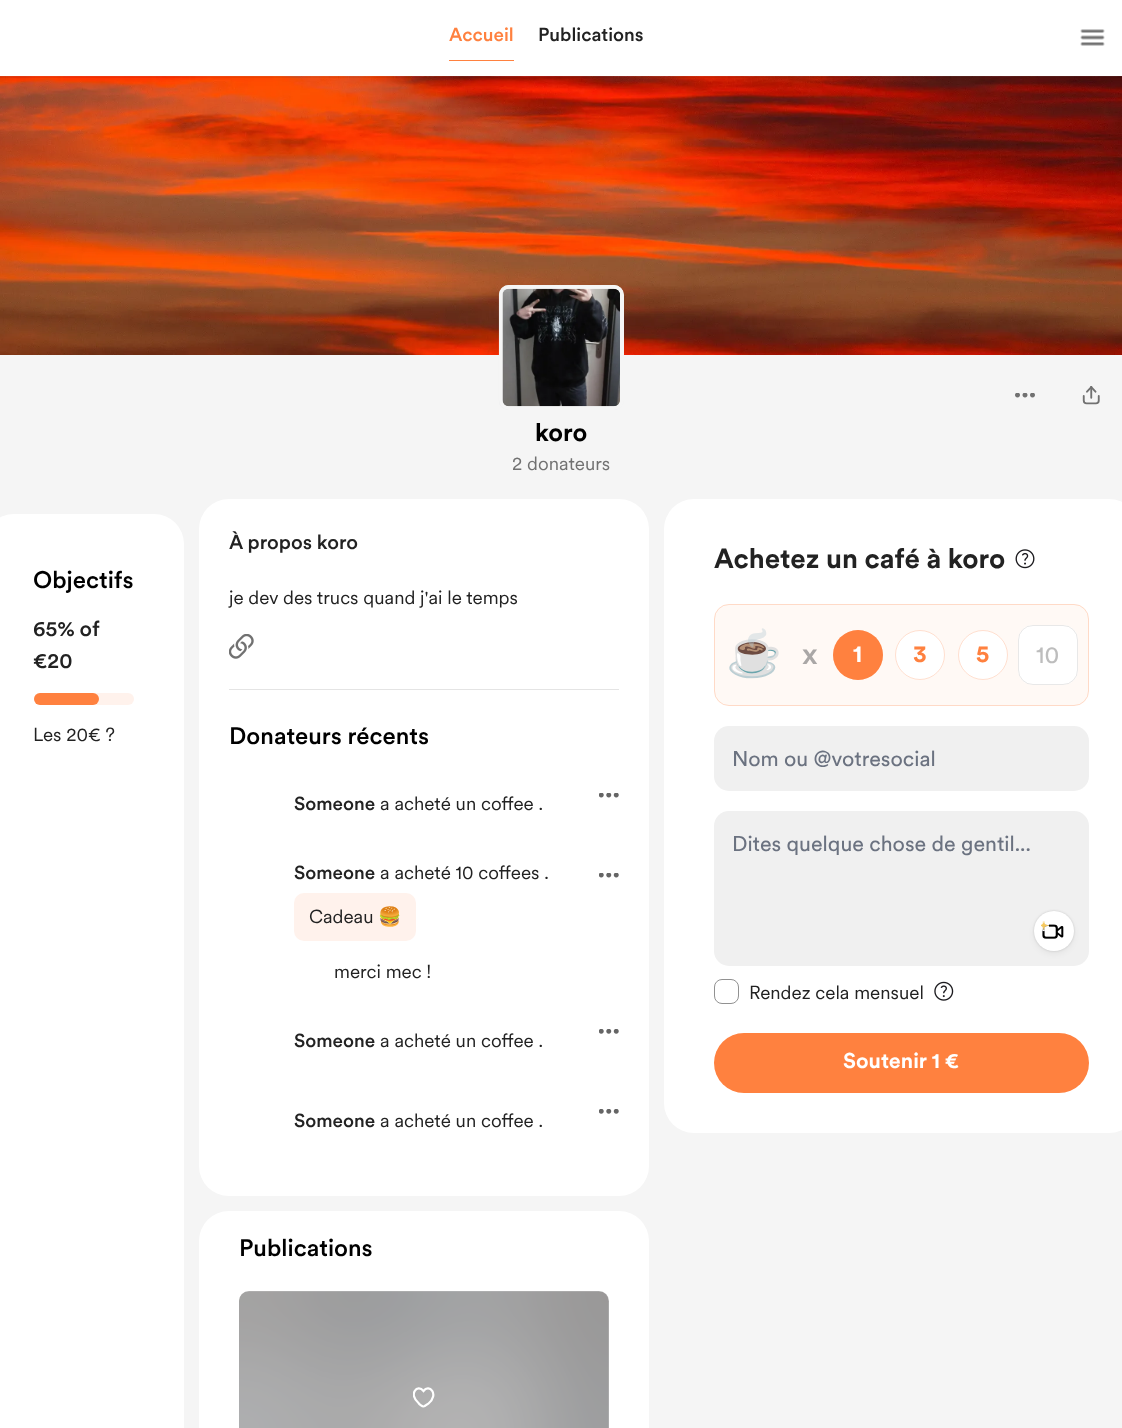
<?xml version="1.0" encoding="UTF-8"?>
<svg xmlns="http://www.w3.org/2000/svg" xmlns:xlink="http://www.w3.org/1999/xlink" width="1122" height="1428">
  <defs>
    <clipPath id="clip1"><rect x="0" y="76" width="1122" height="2" /></clipPath>
    <clipPath id="clip2"><rect x="413" y="1386" width="22" height="23" /></clipPath>
  </defs>
  <rect width="100%" height="100%" fill="#ffffff" />
  <rect y="76" width="1122" height="1352" fill="#f5f5f5" />
  <image x="0" y="76" width="1122" height="279" xlink:href="image2.png" />
  <image x="0" y="76" width="1122" height="1" xlink:href="image3.png" />
  <g clip-path="url(#clip1)">
    <rect y="1" width="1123" height="77" fill="#000000" fill-opacity="0.06" filter="blur(0.5px)" />
  </g>
  <rect x="449" y="60" width="65" height="1" fill="#ff813f" />
  <image x="1080" y="29" width="25" height="17" xlink:href="image1.png" />
  <image x="1015" y="393" width="20" height="5" xlink:href="image4.png" />
  <image x="1082" y="386" width="18" height="19" xlink:href="image5.png" />
  <image x="498" y="285" width="126" height="125" xlink:href="image6.png" />
  <rect x="501" y="287" width="121" height="121" rx="8" fill="none" stroke="#f5f5f5" stroke-width="4" />
  <image x="502" y="288" width="118" height="119" xlink:href="image7.png" />
  <rect x="-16" y="514" width="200" height="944" rx="30" fill="#ffffff" />
  <rect x="34" y="693" width="100" height="12" rx="6" fill="#fff2ec" />
  <rect x="34" y="693" width="65" height="12" rx="6" fill="#ff813f" />
  <rect x="199" y="499" width="450" height="697" rx="30" fill="#ffffff" />
  <rect x="229" y="689" width="390" height="1" fill="#e4e4e4" />
  <image x="229" y="634" width="25" height="25" xlink:href="image8.png" />
  <image x="599" y="793" width="20" height="5" xlink:href="image9.png" />
  <rect x="294" y="893" width="122" height="48" rx="10" fill="#fff2ec" />
  <image x="599" y="873" width="20" height="5" xlink:href="image9.png" />
  <image x="599" y="1029" width="20" height="5" xlink:href="image10.png" />
  <image x="599" y="1109" width="20" height="5" xlink:href="image10.png" />
  <rect x="199" y="1211" width="450" height="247" rx="30" fill="#ffffff" />
  <image x="239" y="1291" width="370" height="137" xlink:href="image11.png" />
  <rect x="239" y="1291" width="370" height="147" rx="10" fill="#222222" fill-opacity="0.3" />
  <g clip-path="url(#clip2)">
    <path d="M 423.5 1406.5 c -1.5 0 -4.5 -2.5 -5 -3.5 c -10.5 -9 -1 -19.5 5 -12 c 5.5 -7.5 16 3 5 12.5 c -1 0.5 -3.5 3 -5 3 z" fill="none" stroke="#ffffff" stroke-width="2.2" />
  </g>
  <rect x="664" y="499" width="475" height="634" rx="30" fill="#ffffff" />
  <image x="1015" y="549" width="20" height="20" xlink:href="image12.png" />
  <rect x="714" y="604" width="375" height="102" rx="15" fill="#fff9f5" />
  <rect x="714.5" y="604.5" width="374" height="101" rx="14.5" fill="none" stroke="#ff813f" stroke-opacity="0.25" />
  <circle cx="858" cy="655" r="25" fill="#ff813f" />
  <circle cx="858" cy="655" r="24.5" fill="none" stroke="#ff813f" stroke-opacity="0.25" />
  <circle cx="920" cy="655" r="25" fill="#ffffff" />
  <circle cx="920" cy="655" r="24.5" fill="none" stroke="#ff813f" stroke-opacity="0.25" />
  <circle cx="983" cy="655" r="25" fill="#ffffff" />
  <circle cx="983" cy="655" r="24.5" fill="none" stroke="#ff813f" stroke-opacity="0.25" />
  <rect x="1018" y="625" width="60" height="60" rx="15" fill="#ffffff" />
  <rect x="1018.5" y="625.5" width="59" height="59" rx="14.5" fill="none" stroke="#222222" stroke-opacity="0.1" />
  <rect x="714" y="726" width="375" height="65" rx="15" fill="#f0f0f0" />
  <rect x="714" y="811" width="375" height="155" rx="15" fill="#f0f0f0" />
  <rect x="1034" y="914" width="40" height="40" rx="20" fill="#000000" fill-opacity="0.05" filter="blur(3px)" />
  <rect x="1034" y="911" width="40" height="40" rx="20" fill="#000000" fill-opacity="0.15" filter="blur(1px)" />
  <circle cx="1054" cy="931" r="20" fill="#ffffff" />
  <image x="1042" y="924" width="22" height="15" xlink:href="image14.png" />
  <image x="1041" y="921" width="8" height="11" xlink:href="image13.png" />
  <rect x="714.5" y="979.5" width="24" height="24" rx="7.5" fill="none" stroke="#919191" />
  <image x="934" y="981" width="20" height="20" xlink:href="image15.png" />
  <rect x="714" y="1033" width="375" height="60" rx="30" fill="#ff813f" />
  <text x="449" y="41" style="font-family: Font; font-size: 18.75px; font-weight: 500; fill: #ff813f">Accueil</text>
  <text x="538" y="41" style="font-family: Font; font-size: 18.75px; font-weight: 500; fill: #222222">Publications</text>
  <text x="535" y="441" style="font-family: Font; font-size: 25px; font-weight: bold; fill: #000000">koro</text>
  <text x="512" y="470" style="font-family: 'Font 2'; font-size: 18.75px; fill: #717171">2 donateurs</text>
  <text x="33" y="588" style="font-family: Font; font-size: 23.75px; font-weight: 500; fill: #000000">Objectifs</text>
  <text x="33" y="636" style="font-family: Font; font-size: 21.25px; font-weight: 500; fill: #222222">65% of</text>
  <text x="33" y="668" style="font-family: Font; font-size: 21.25px; font-weight: 500; fill: #222222">€20</text>
  <text x="33" y="741" style="font-family: 'Font 2'; font-size: 18.75px; fill: #222222">Les 20€ ?</text>
  <text x="229" y="549" style="font-family: Font; font-size: 20px; font-weight: 500; fill: #222222">À propos koro</text>
  <text x="229" y="604" style="font-family: 'Font 2'; font-size: 18.75px; fill: #222222">je dev des trucs quand j'ai le temps</text>
  <text x="229" y="744" style="font-family: Font; font-size: 23.75px; font-weight: 500; fill: #000000">Donateurs récents</text>
  <text x="294" y="810" style="font-family: Font; font-size: 18.75px; font-weight: 500; fill: #222222">Someone</text>
  <text x="380" y="810" style="font-family: 'Font 2'; font-size: 18.75px; fill: #222222">a acheté un coffee .</text>
  <text x="294" y="879" style="font-family: Font; font-size: 18.75px; font-weight: 500; fill: #222222">Someone</text>
  <text x="380" y="879" style="font-family: 'Font 2'; font-size: 18.75px; fill: #222222">a acheté 10 coffees .</text>
  <text x="309" y="923" style="font-family: 'Font 2'; font-size: 18.75px; fill: #222222">Cadeau</text>
  <text x="378" y="923" style="font-family: Noto Color Emoji; font-size: 18.75px; fill: #222222">🍔</text>
  <text x="334" y="978" style="font-family: 'Font 2'; font-size: 18.75px; fill: #222222">merci mec !</text>
  <text x="294" y="1047" style="font-family: Font; font-size: 18.75px; font-weight: 500; fill: #222222">Someone</text>
  <text x="380" y="1047" style="font-family: 'Font 2'; font-size: 18.75px; fill: #222222">a acheté un coffee .</text>
  <text x="294" y="1127" style="font-family: Font; font-size: 18.75px; font-weight: 500; fill: #222222">Someone</text>
  <text x="380" y="1127" style="font-family: 'Font 2'; font-size: 18.75px; fill: #222222">a acheté un coffee .</text>
  <text x="239" y="1256" style="font-family: Font; font-size: 23.75px; font-weight: 500; fill: #000000">Publications</text>
  <text x="714" y="568" style="font-family: Font; font-size: 27.5px; font-weight: bold; fill: #222222">Achetez un café à koro</text>
  <text x="726" y="669" style="font-family: Noto Color Emoji; font-size: 45px; fill: #000000">☕</text>
  <text x="802" y="664" style="font-family: Font; font-size: 30px; font-weight: 500; fill: #aaa7a6">x</text>
  <text x="853" y="662" style="font-family: Font; font-size: 23.75px; font-weight: bold; fill: #ffffff">1</text>
  <text x="913" y="662" style="font-family: Font; font-size: 23.75px; font-weight: bold; fill: #ff813f">3</text>
  <text x="976" y="662" style="font-family: Font; font-size: 23.75px; font-weight: bold; fill: #ff813f">5</text>
  <text x="1036" y="663" style="font-family: Font; font-size: 23.75px; fill: #bdbdbd">10</text>
  <text x="732" y="766" style="font-family: Font; font-size: 21.25px; fill: #6b7280">Nom ou @votresocial</text>
  <text x="732" y="851" style="font-family: Font; font-size: 21.25px; fill: #6b7280">Dites quelque chose de gentil...</text>
  <text x="749" y="999" style="font-family: 'Font 2'; font-size: 18.75px; fill: #222222">Rendez cela mensuel</text>
  <text x="843" y="1068" style="font-family: Font; font-size: 21.25px; font-weight: bold; fill: #ffffff">Soutenir 1 €</text>
</svg>
